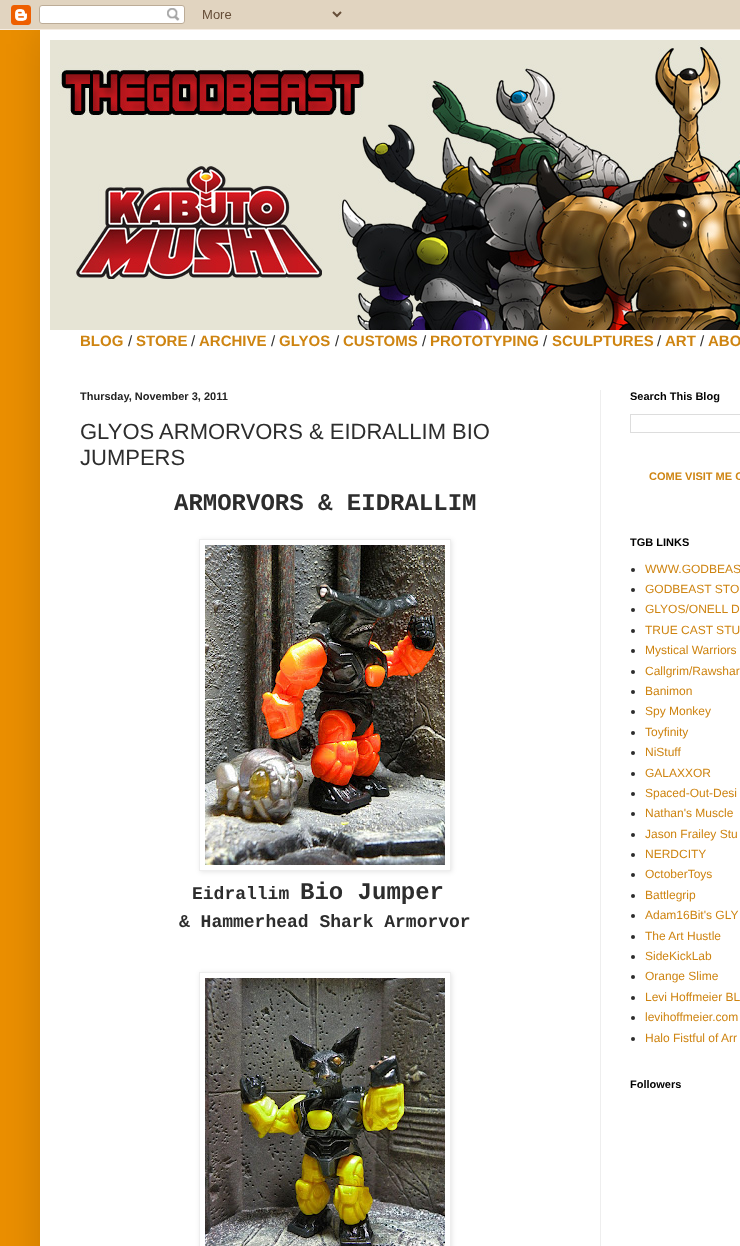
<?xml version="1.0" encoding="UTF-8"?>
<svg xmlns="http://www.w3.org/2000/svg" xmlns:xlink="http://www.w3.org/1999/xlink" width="740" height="1246">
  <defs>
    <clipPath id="clip1"><path d="M 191 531 h 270 v 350 h -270 z m 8 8 h 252 v 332 h -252 z" clip-rule="evenodd" /></clipPath>
    <clipPath id="clip2"><path d="M 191 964 h 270 v 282 h -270 z m 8 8 h 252 v 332 h -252 z" clip-rule="evenodd" /></clipPath>
  </defs>
  <rect width="100%" height="100%" fill="#eb8f00" />
  <rect x="40" y="30" width="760" height="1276" fill="#000000" fill-opacity="0.15" filter="blur(20px)" />
  <image x="0" y="0" width="740" height="30" xlink:href="image1.png" />
  <rect x="40" y="30" width="700" height="1216" fill="#ffffff" />
  <image x="50" y="40" width="690" height="290" xlink:href="image2.png" />
  <rect x="600" y="390" width="1" height="856" fill="#eeeeee" />
  <g clip-path="url(#clip1)">
    <rect x="200" y="540" width="252" height="332" fill="#000000" fill-opacity="0.1" filter="blur(2.5px)" />
  </g>
  <rect x="199.5" y="539.5" width="251" height="331" fill="none" stroke="#eeeeee" />
  <image x="205" y="545" width="240" height="320" xlink:href="image3.png" />
  <g clip-path="url(#clip2)">
    <rect x="200" y="973" width="252" height="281" fill="#000000" fill-opacity="0.1" filter="blur(2.5px)" />
  </g>
  <rect x="199.5" y="972.5" width="251" height="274" fill="none" stroke="#eeeeee" />
  <image x="205" y="978" width="240" height="268" xlink:href="image4.png" />
  <rect x="630.5" y="414.5" width="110" height="18" fill="none" stroke="#dddddd" />
  <circle cx="633" cy="570" r="2" fill="#2d2d2d" />
  <circle cx="633" cy="590" r="2" fill="#2d2d2d" />
  <circle cx="633" cy="610" r="2" fill="#2d2d2d" />
  <circle cx="633" cy="631" r="2" fill="#2d2d2d" />
  <circle cx="633" cy="651" r="2" fill="#2d2d2d" />
  <circle cx="633" cy="672" r="2" fill="#2d2d2d" />
  <circle cx="633" cy="692" r="2" fill="#2d2d2d" />
  <circle cx="633" cy="712" r="2" fill="#2d2d2d" />
  <circle cx="633" cy="733" r="2" fill="#2d2d2d" />
  <circle cx="633" cy="753" r="2" fill="#2d2d2d" />
  <circle cx="633" cy="774" r="2" fill="#2d2d2d" />
  <circle cx="633" cy="794" r="2" fill="#2d2d2d" />
  <circle cx="633" cy="814" r="2" fill="#2d2d2d" />
  <circle cx="633" cy="835" r="2" fill="#2d2d2d" />
  <circle cx="633" cy="855" r="2" fill="#2d2d2d" />
  <circle cx="633" cy="875" r="2" fill="#2d2d2d" />
  <circle cx="633" cy="896" r="2" fill="#2d2d2d" />
  <circle cx="633" cy="916" r="2" fill="#2d2d2d" />
  <circle cx="633" cy="937" r="2" fill="#2d2d2d" />
  <circle cx="633" cy="957" r="2" fill="#2d2d2d" />
  <circle cx="633" cy="977" r="2" fill="#2d2d2d" />
  <circle cx="633" cy="998" r="2" fill="#2d2d2d" />
  <circle cx="633" cy="1018" r="2" fill="#2d2d2d" />
  <circle cx="633" cy="1039" r="2" fill="#2d2d2d" />
  <text x="80" y="346" style="font-family: Liberation Sans; font-size: 15px; font-weight: bold; fill: #ce8411">BLOG</text>
  <text x="128" y="346" style="font-family: Liberation Sans; font-size: 15px; fill: #2d2d2d">/</text>
  <text x="136" y="346" style="font-family: Liberation Sans; font-size: 15px; font-weight: bold; fill: #ce8411">STORE</text>
  <text x="191" y="346" style="font-family: Liberation Sans; font-size: 15px; fill: #2d2d2d">/</text>
  <text x="199" y="346" style="font-family: Liberation Sans; font-size: 15px; font-weight: bold; fill: #ce8411">ARCHIVE</text>
  <text x="271" y="346" style="font-family: Liberation Sans; font-size: 15px; fill: #2d2d2d">/</text>
  <text x="279" y="346" style="font-family: Liberation Sans; font-size: 15px; font-weight: bold; fill: #ce8411">GLYOS</text>
  <text x="335" y="346" style="font-family: Liberation Sans; font-size: 15px; fill: #2d2d2d">/</text>
  <text x="343" y="346" style="font-family: Liberation Sans; font-size: 15px; font-weight: bold; fill: #ce8411">CUSTOMS</text>
  <text x="422" y="346" style="font-family: Liberation Sans; font-size: 15px; fill: #2d2d2d">/</text>
  <text x="430" y="346" style="font-family: Liberation Sans; font-size: 15px; font-weight: bold; fill: #ce8411">PROTOTYPING</text>
  <text x="543" y="346" style="font-family: Liberation Sans; font-size: 15px; fill: #2d2d2d">/</text>
  <text x="552" y="346" style="font-family: Liberation Sans; font-size: 15px; font-weight: bold; fill: #ce8411">SCULPTURES</text>
  <text x="657" y="346" style="font-family: Liberation Sans; font-size: 15px; fill: #2d2d2d">/</text>
  <text x="665" y="346" style="font-family: Liberation Sans; font-size: 15px; font-weight: bold; fill: #ce8411">ART</text>
  <text x="700" y="346" style="font-family: Liberation Sans; font-size: 15px; fill: #2d2d2d">/</text>
  <text x="708" y="346" style="font-family: Liberation Sans; font-size: 15px; font-weight: bold; fill: #ce8411">ABO</text>
  <text x="80" y="400" style="font-family: Liberation Sans; font-size: 11px; font-weight: bold; fill: #222222">Thursday, November 3, 2011</text>
  <text x="80" y="439" style="font-family: Liberation Sans; font-size: 22px; fill: #2d2d2d">GLYOS ARMORVORS &amp; EIDRALLIM BIO</text>
  <text x="80" y="465" style="font-family: Liberation Sans; font-size: 22px; fill: #2d2d2d">JUMPERS</text>
  <text x="174" y="510" style="font-family: Liberation Mono; font-size: 24px; font-weight: bold; fill: #2d2d2d">ARMORVORS &amp; EIDRALLIM</text>
  <text x="192" y="899" style="font-family: Liberation Mono; font-size: 18px; font-weight: bold; fill: #2d2d2d">Eidrallim</text>
  <text x="300" y="899" style="font-family: Liberation Mono; font-size: 24px; font-weight: bold; fill: #2d2d2d">Bio Jumper</text>
  <text x="179" y="927" style="font-family: Liberation Mono; font-size: 18px; font-weight: bold; fill: #2d2d2d">&amp; Hammerhead Shark Armorvor</text>
  <text x="630" y="400" style="font-family: Liberation Sans; font-size: 11px; font-weight: bold; fill: #000000">Search This Blog</text>
  <text x="649" y="480" style="font-family: Liberation Sans; font-size: 11px; font-weight: bold; fill: #ce8411">COME VISIT ME O</text>
  <text x="630" y="546" style="font-family: Liberation Sans; font-size: 11px; font-weight: bold; fill: #000000">TGB LINKS</text>
  <text x="645" y="573" style="font-family: Liberation Sans; font-size: 12px; fill: #ce8411">WWW.GODBEAS</text>
  <text x="645" y="593" style="font-family: Liberation Sans; font-size: 12px; fill: #ce8411">GODBEAST STO</text>
  <text x="645" y="613" style="font-family: Liberation Sans; font-size: 12px; fill: #ce8411">GLYOS/ONELL D</text>
  <text x="645" y="634" style="font-family: Liberation Sans; font-size: 12px; fill: #ce8411">TRUE CAST STU</text>
  <text x="645" y="654" style="font-family: Liberation Sans; font-size: 12px; fill: #ce8411">Mystical Warriors</text>
  <text x="645" y="675" style="font-family: Liberation Sans; font-size: 12px; fill: #ce8411">Callgrim/Rawshar</text>
  <text x="645" y="695" style="font-family: Liberation Sans; font-size: 12px; fill: #ce8411">Banimon</text>
  <text x="645" y="715" style="font-family: Liberation Sans; font-size: 12px; fill: #ce8411">Spy Monkey</text>
  <text x="645" y="736" style="font-family: Liberation Sans; font-size: 12px; fill: #ce8411">Toyfinity</text>
  <text x="645" y="756" style="font-family: Liberation Sans; font-size: 12px; fill: #ce8411">NiStuff</text>
  <text x="645" y="777" style="font-family: Liberation Sans; font-size: 12px; fill: #ce8411">GALAXXOR</text>
  <text x="645" y="797" style="font-family: Liberation Sans; font-size: 12px; fill: #ce8411">Spaced-Out-Desi</text>
  <text x="645" y="817" style="font-family: Liberation Sans; font-size: 12px; fill: #ce8411">Nathan's Muscle</text>
  <text x="645" y="838" style="font-family: Liberation Sans; font-size: 12px; fill: #ce8411">Jason Frailey Stu</text>
  <text x="645" y="858" style="font-family: Liberation Sans; font-size: 12px; fill: #ce8411">NERDCITY</text>
  <text x="645" y="878" style="font-family: Liberation Sans; font-size: 12px; fill: #ce8411">OctoberToys</text>
  <text x="645" y="899" style="font-family: Liberation Sans; font-size: 12px; fill: #ce8411">Battlegrip</text>
  <text x="645" y="919" style="font-family: Liberation Sans; font-size: 12px; fill: #ce8411">Adam16Bit's GLY</text>
  <text x="645" y="940" style="font-family: Liberation Sans; font-size: 12px; fill: #ce8411">The Art Hustle</text>
  <text x="645" y="960" style="font-family: Liberation Sans; font-size: 12px; fill: #ce8411">SideKickLab</text>
  <text x="645" y="980" style="font-family: Liberation Sans; font-size: 12px; fill: #ce8411">Orange Slime</text>
  <text x="645" y="1001" style="font-family: Liberation Sans; font-size: 12px; fill: #ce8411">Levi Hoffmeier BL</text>
  <text x="645" y="1021" style="font-family: Liberation Sans; font-size: 12px; fill: #ce8411">levihoffmeier.com</text>
  <text x="645" y="1042" style="font-family: Liberation Sans; font-size: 12px; fill: #ce8411">Halo Fistful of Arr</text>
  <text x="630" y="1088" style="font-family: Liberation Sans; font-size: 11px; font-weight: bold; fill: #000000">Followers</text>
</svg>
